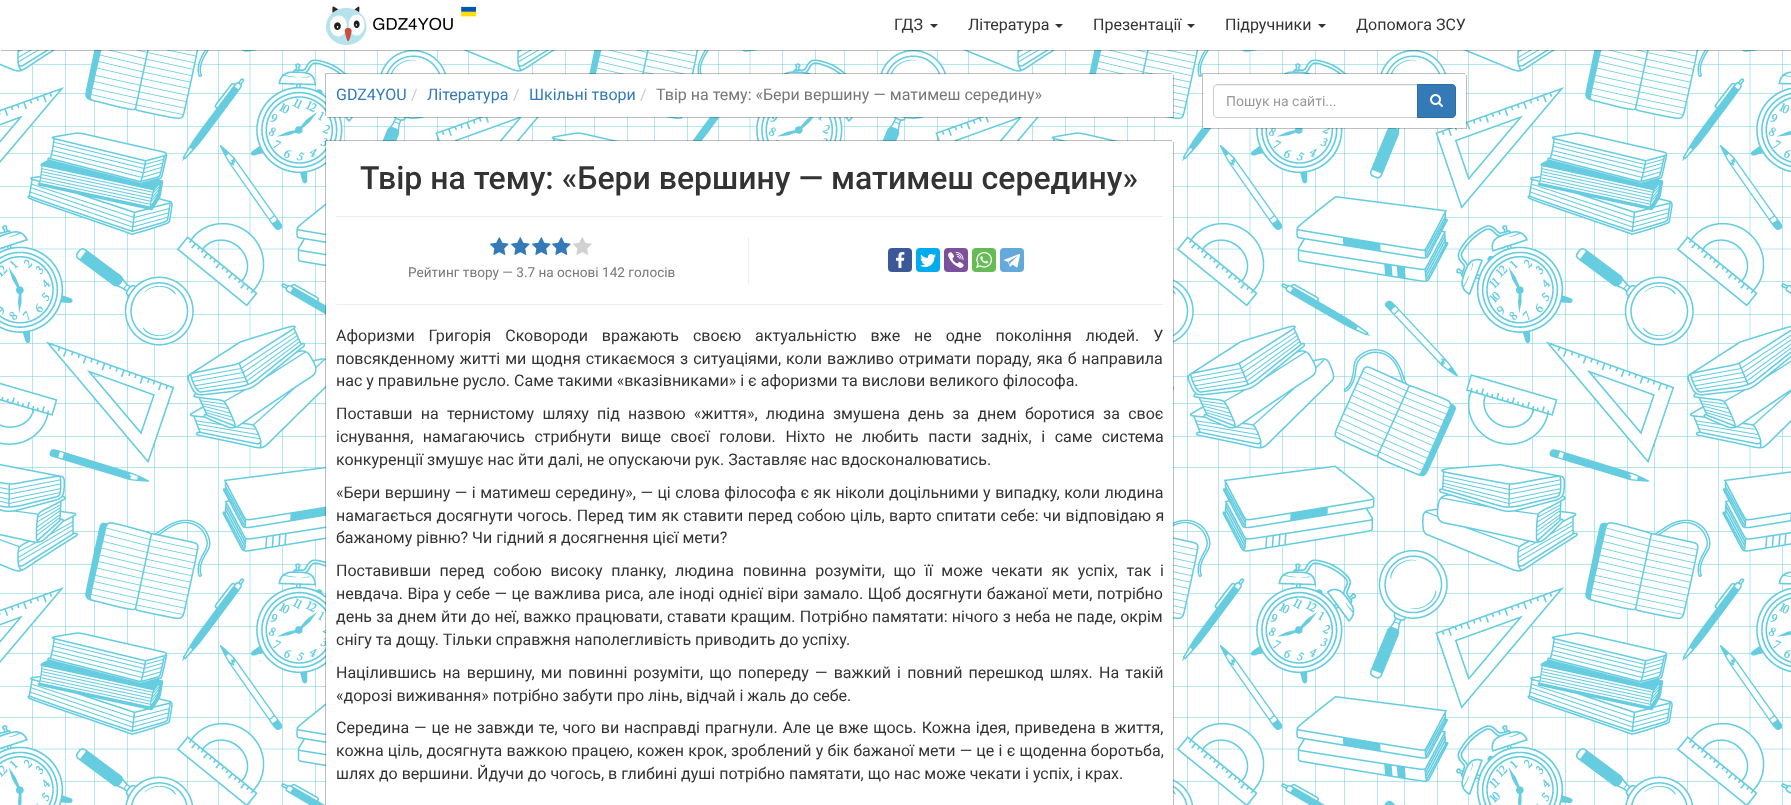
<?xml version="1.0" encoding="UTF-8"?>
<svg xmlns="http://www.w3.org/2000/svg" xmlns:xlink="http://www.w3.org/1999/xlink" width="1791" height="805">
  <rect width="100%" height="100%" fill="#ffffff" />
  <image x="0" y="50" width="1791" height="755" xlink:href="image1.png" />
  <rect x="1" y="1" width="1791" height="50" fill="#000000" fill-opacity="0.25" filter="blur(0.5px)" />
  <rect width="1791" height="50" fill="#ffffff" />
  <image x="326" y="6" width="150" height="39" xlink:href="image2.png" />
  <path d="M 930 24 h 8 l -4 4 z" fill="#333333" />
  <path d="M 1055 24 h 8 l -4 4 z" fill="#333333" />
  <path d="M 1187 24 h 8 l -4 4 z" fill="#333333" />
  <path d="M 1318 24 h 8 l -4 4 z" fill="#333333" />
  <rect x="325" y="73" width="847" height="43" fill="#000000" fill-opacity="0.25" filter="blur(0.5px)" />
  <rect x="327" y="75" width="847" height="43" fill="#000000" fill-opacity="0.25" filter="blur(0.5px)" />
  <rect x="326" y="74" width="847" height="43" fill="#ffffff" />
  <rect x="325" y="140" width="847" height="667" fill="#000000" fill-opacity="0.25" filter="blur(0.5px)" />
  <rect x="327" y="142" width="847" height="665" fill="#000000" fill-opacity="0.25" filter="blur(0.5px)" />
  <rect x="326" y="141" width="847" height="664" fill="#ffffff" />
  <rect x="336" y="216" width="827" height="1" fill="#eeeeee" />
  <rect x="888" y="248" width="24" height="24" rx="4" fill="#3b5998" />
  <image x="896" y="252" width="9" height="16" xlink:href="image3.png" />
  <rect x="916" y="248" width="24" height="24" rx="4" fill="#00aced" />
  <image x="920" y="254" width="16" height="13" xlink:href="image4.png" />
  <rect x="944" y="248" width="24" height="24" rx="4" fill="#7b519d" />
  <image x="948" y="252" width="16" height="16" xlink:href="image5.png" />
  <rect x="972" y="248" width="24" height="24" rx="4" fill="#65bc54" />
  <image x="976" y="252" width="16" height="16" xlink:href="image6.png" />
  <rect x="1000" y="248" width="24" height="24" rx="4" fill="#64a9dc" />
  <image x="1004" y="254" width="16" height="14" xlink:href="image7.png" />
  <rect x="748" y="237" width="1" height="47" fill="#eeeeee" />
  <image x="490" y="237" width="19" height="18" xlink:href="image8.png" />
  <image x="511" y="237" width="19" height="18" xlink:href="image8.png" />
  <image x="532" y="237" width="19" height="18" xlink:href="image8.png" />
  <image x="552" y="237" width="19" height="18" xlink:href="image8.png" />
  <image x="573" y="237" width="19" height="18" xlink:href="image9.png" />
  <rect x="336" y="304" width="827" height="1" fill="#eeeeee" />
  <rect x="1202" y="73" width="263" height="54" fill="#000000" fill-opacity="0.25" filter="blur(0.5px)" />
  <rect x="1204" y="75" width="263" height="54" fill="#000000" fill-opacity="0.25" filter="blur(0.5px)" />
  <rect x="1203" y="74" width="263" height="54" fill="#ffffff" />
  <path d="M 1217 86 h 200 v -1 h -201 c -2 1 -2 2 -2 4 c 0 -2 1 -3 3 -3 z" fill="#ececec" />
  <path d="M 1217 84.5 h 200.5 v 33 h -200.5 c -2 0 -3.5 -1.5 -3.5 -3.5 v -26 c 0 -2 1.5 -3.5 3.5 -3.5 z" fill="none" stroke="#cccccc" />
  <path d="M 1417.5 84.5 h 34.5 c 2 0 3.5 1.5 3.5 3.5 v 26 c 0 2 -1.5 3.5 -3.5 3.5 h -34.5 z" fill="#337ab7" stroke="#2e6da4" />
  <image x="1430" y="94" width="13" height="13" xlink:href="image10.png" />
  <text x="894" y="30" style="font-family: Roboto; font-size: 16px; fill: #333333">ГДЗ</text>
  <text x="968" y="30" style="font-family: Roboto; font-size: 16px; fill: #333333">Література</text>
  <text x="1093" y="30" style="font-family: Roboto; font-size: 16px; fill: #333333">Презентації</text>
  <text x="1225" y="30" style="font-family: Roboto; font-size: 16px; fill: #333333">Підручники</text>
  <text x="1356" y="30" style="font-family: Roboto; font-size: 16px; fill: #333333">Допомога ЗСУ</text>
  <text x="336" y="100" style="font-family: Roboto; font-size: 16px; fill: #337ab7">GDZ4YOU</text>
  <text x="411" y="100" style="font-family: Roboto; font-size: 16px; fill: #cccccc">/</text>
  <text x="427" y="100" style="font-family: Roboto; font-size: 16px; fill: #337ab7">Література</text>
  <text x="513" y="100" style="font-family: Roboto; font-size: 16px; fill: #cccccc">/</text>
  <text x="529" y="100" style="font-family: Roboto; font-size: 16px; fill: #337ab7">Шкільні твори</text>
  <text x="640" y="100" style="font-family: Roboto; font-size: 16px; fill: #cccccc">/</text>
  <text x="656" y="100" style="font-family: Roboto; font-size: 16px; fill: #777777">Твір на тему: «Бери вершину — матимеш середину»</text>
  <text x="360" y="189" style="font-family: Roboto; font-size: 32px; font-weight: 500; fill: #333333">Твір на тему: «Бери вершину — матимеш середину»</text>
  <text x="408" y="277" style="font-family: Roboto; font-size: 13.6px; fill: #777777">Рейтинг твору — 3.7 на основі 142 голосів</text>
  <text x="336" y="341" word-spacing="9.9" style="font-family: Roboto; font-size: 16px; fill: #333333">Афоризми Григорія Сковороди вражають своєю актуальністю вже не одне покоління людей. У</text>
  <text x="336" y="364" word-spacing="1" style="font-family: Roboto; font-size: 16px; fill: #333333">повсякденному житті ми щодня стикаємося з ситуаціями, коли важливо отримати пораду, яка б направила</text>
  <text x="336" y="386" style="font-family: Roboto; font-size: 16px; fill: #333333">нас у правильне русло. Саме такими «вказівниками» і є афоризми та вислови великого філософа.</text>
  <text x="336" y="419" word-spacing="4.25" style="font-family: Roboto; font-size: 16px; fill: #333333">Поставши на тернистому шляху під назвою «життя», людина змушена день за днем боротися за своє</text>
  <text x="336" y="442" word-spacing="5.6" style="font-family: Roboto; font-size: 16px; fill: #333333">існування, намагаючись стрибнути вище своєї голови. Ніхто не любить пасти задніх, і саме система</text>
  <text x="336" y="465" style="font-family: Roboto; font-size: 16px; fill: #333333">конкуренції змушує нас йти далі, не опускаючи рук. Заставляє нас вдосконалюватись.</text>
  <text x="336" y="498" word-spacing="0.5" style="font-family: Roboto; font-size: 16px; fill: #333333">«Бери вершину — і матимеш середину», — ці слова філософа є як ніколи доцільними у випадку, коли людина</text>
  <text x="336" y="521" word-spacing="0.5" style="font-family: Roboto; font-size: 16px; fill: #333333">намагається досягнути чогось. Перед тим як ставити перед собою ціль, варто спитати себе: чи відповідаю я</text>
  <text x="336" y="543" style="font-family: Roboto; font-size: 16px; fill: #333333">бажаному рівню? Чи гідний я досягнення цієї мети?</text>
  <text x="336" y="576" word-spacing="4.75" style="font-family: Roboto; font-size: 16px; fill: #333333">Поставивши перед собою високу планку, людина повинна розуміти, що її може чекати як успіх, так і</text>
  <text x="336" y="599" word-spacing="0.6" style="font-family: Roboto; font-size: 16px; fill: #333333">невдача. Віра у себе — це важлива риса, але іноді однієї віри замало. Щоб досягнути бажаної мети, потрібно</text>
  <text x="336" y="622" word-spacing="0.3" style="font-family: Roboto; font-size: 16px; fill: #333333">день за днем йти до неї, важко працювати, ставати кращим. Потрібно памятати: нічого з неба не паде, окрім</text>
  <text x="336" y="645" style="font-family: Roboto; font-size: 16px; fill: #333333">снігу та дощу. Тільки справжня наполегливість приводить до успіху.</text>
  <text x="336" y="678" word-spacing="2.25" style="font-family: Roboto; font-size: 16px; fill: #333333">Націлившись на вершину, ми повинні розуміти, що попереду — важкий і повний перешкод шлях. На такій</text>
  <text x="336" y="701" style="font-family: Roboto; font-size: 16px; fill: #333333">«дорозі виживання» потрібно забути про лінь, відчай і жаль до себе.</text>
  <text x="336" y="733" word-spacing="0.9" style="font-family: Roboto; font-size: 16px; fill: #333333">Середина — це не завжди те, чого ви насправді прагнули. Але це вже щось. Кожна ідея, приведена в життя,</text>
  <text x="336" y="756" word-spacing="0.25" style="font-family: Roboto; font-size: 16px; fill: #333333">кожна ціль, досягнута важкою працею, кожен крок, зроблений у бік бажаної мети — це і є щоденна боротьба,</text>
  <text x="336" y="779" style="font-family: Roboto; font-size: 16px; fill: #333333">шлях до вершини. Йдучи до чогось, в глибині душі потрібно памятати, що нас може чекати і успіх, і крах.</text>
  <text x="1226" y="106" style="font-family: Roboto; font-size: 14px; fill: #999999">Пошук на сайті...</text>
</svg>
